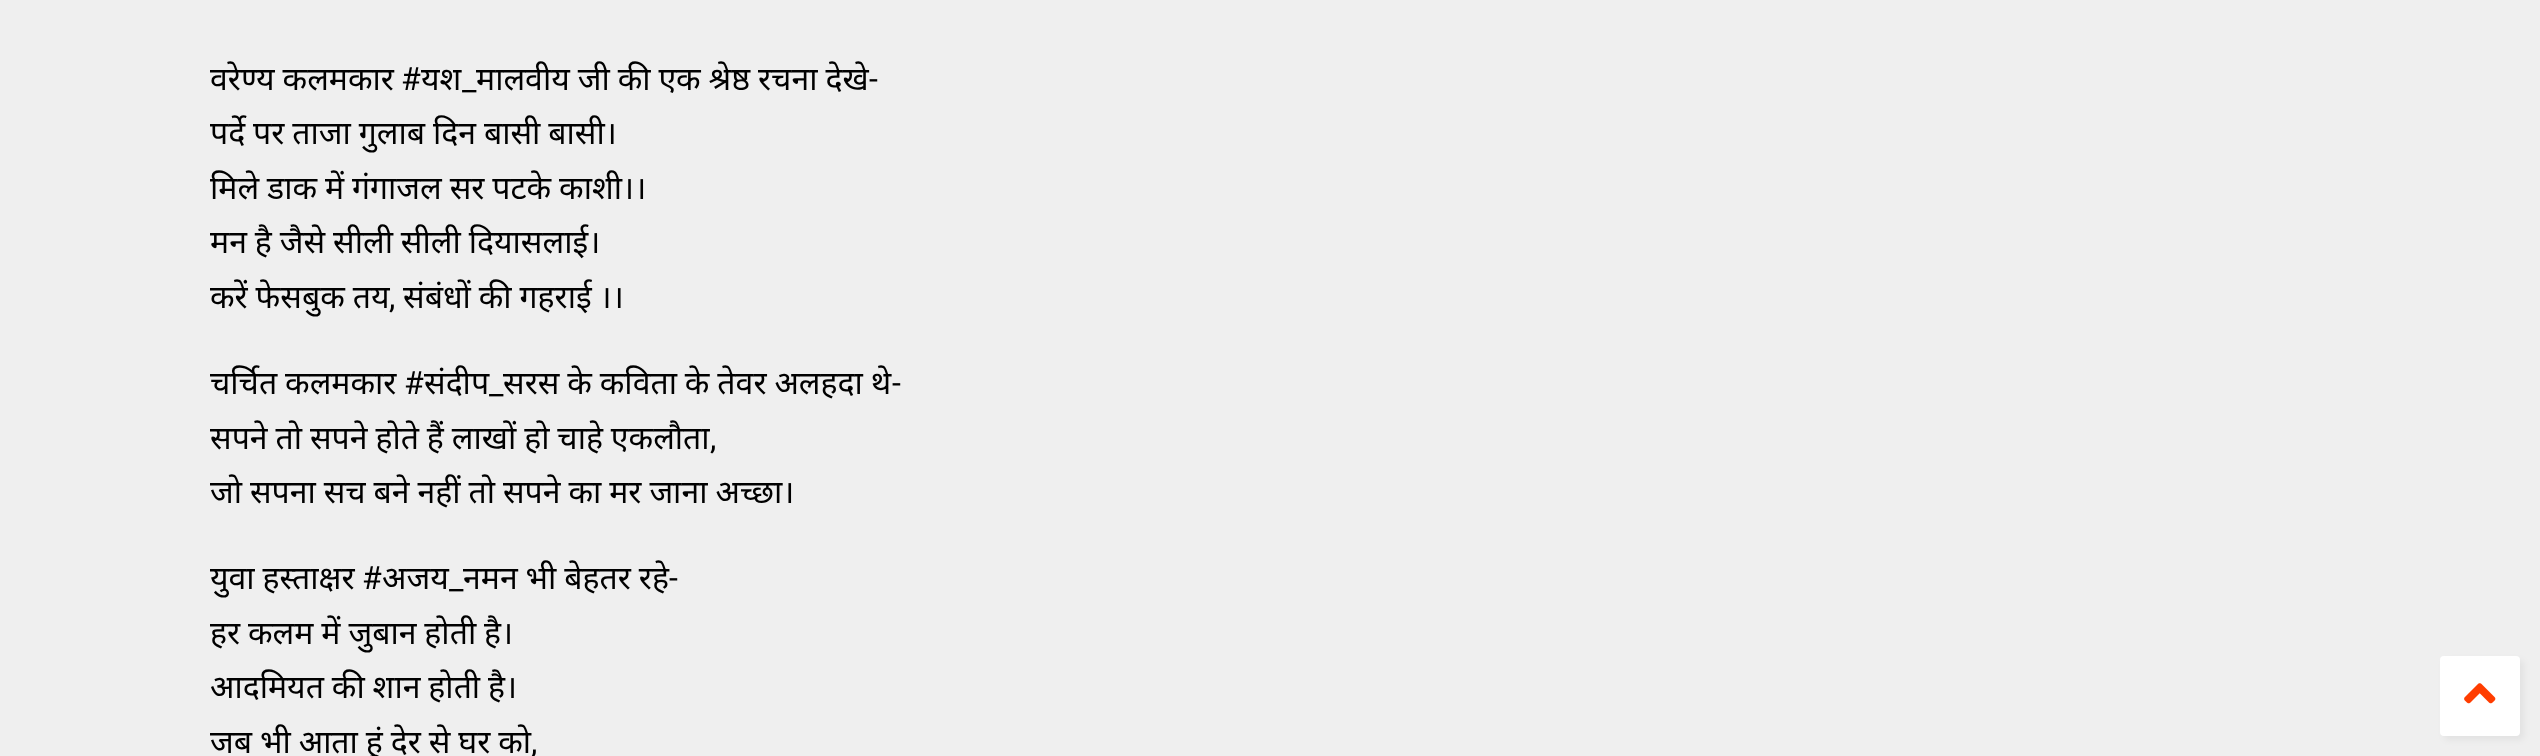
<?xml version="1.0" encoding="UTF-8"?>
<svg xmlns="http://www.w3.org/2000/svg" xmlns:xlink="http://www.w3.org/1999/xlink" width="2540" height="756">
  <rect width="100%" height="100%" fill="#efefef" />
  <rect x="2444" y="660" width="80" height="80" rx="4" fill="#000000" fill-opacity="0.05" filter="blur(3px)" />
  <rect x="2440" y="656" width="80" height="80" rx="4" fill="#ffffff" />
  <image x="2464" y="683" width="32" height="21" xlink:href="image1.png" />
  <text x="210" y="90" word-spacing="-0.4" style="font-family: Noto Sans; font-size: 32px; fill: #000000">वरेण्य कलमकार</text>
  <text x="401" y="90" style="font-family: Roboto; font-size: 32px; fill: #000000">#</text>
  <text x="421" y="90" style="font-family: Noto Sans; font-size: 32px; fill: #000000">यश</text>
  <text x="462" y="90" style="font-family: Roboto; font-size: 32px; fill: #000000">_</text>
  <text x="476" y="90" word-spacing="-0.4" style="font-family: Noto Sans; font-size: 32px; fill: #000000">मालवीय जी की एक श्रेष्ठ रचना देखे</text>
  <text x="869" y="90" style="font-family: Roboto; font-size: 32px; fill: #000000">-</text>
  <text x="210" y="144" word-spacing="-0.4" style="font-family: Noto Sans; font-size: 32px; fill: #000000">पर्दे पर ताजा गुलाब दिन बासी बासी।</text>
  <text x="210" y="199" word-spacing="-0.4" style="font-family: Noto Sans; font-size: 32px; fill: #000000">मिले डाक में गंगाजल सर पटके काशी।।</text>
  <text x="210" y="253" word-spacing="-0.4" style="font-family: Noto Sans; font-size: 32px; fill: #000000">मन है जैसे सीली सीली दियासलाई।</text>
  <text x="210" y="308" word-spacing="-0.4" style="font-family: Noto Sans; font-size: 32px; fill: #000000">करें फेसबुक तय</text>
  <text x="389" y="308" style="font-family: Roboto; font-size: 32px; fill: #000000">,</text>
  <text x="403" y="308" word-spacing="-0.4" style="font-family: Noto Sans; font-size: 32px; fill: #000000">संबंधों की गहराई ।।</text>
  <text x="210" y="394" word-spacing="-0.4" style="font-family: Noto Sans; font-size: 32px; fill: #000000">चर्चित कलमकार</text>
  <text x="404" y="394" style="font-family: Roboto; font-size: 32px; fill: #000000">#</text>
  <text x="424" y="394" style="font-family: Noto Sans; font-size: 32px; fill: #000000">संदीप</text>
  <text x="892" y="394" style="font-family: Roboto; font-size: 32px; fill: #000000">-</text>
  <text x="489" y="394" style="font-family: Roboto; font-size: 32px; fill: #000000">_</text>
  <text x="503" y="394" word-spacing="-0.4" style="font-family: Noto Sans; font-size: 32px; fill: #000000">सरस के कविता के तेवर अलहदा थे</text>
  <text x="210" y="449" word-spacing="-0.4" style="font-family: Noto Sans; font-size: 32px; fill: #000000">सपने तो सपने होते हैं लाखों हो चाहे एकलौता</text>
  <text x="710" y="449" style="font-family: Roboto; font-size: 32px; fill: #000000">,</text>
  <text x="210" y="503" word-spacing="-0.4" style="font-family: Noto Sans; font-size: 32px; fill: #000000">जो सपना सच बने नहीं तो सपने का मर जाना अच्छा।</text>
  <text x="210" y="589" word-spacing="-0.4" style="font-family: Noto Sans; font-size: 32px; fill: #000000">युवा हस्ताक्षर</text>
  <text x="362" y="589" style="font-family: Roboto; font-size: 32px; fill: #000000">#</text>
  <text x="382" y="589" style="font-family: Noto Sans; font-size: 32px; fill: #000000">अजय</text>
  <text x="463" y="589" word-spacing="-0.4" style="font-family: Noto Sans; font-size: 32px; fill: #000000">नमन भी बेहतर रहे</text>
  <text x="669" y="589" style="font-family: Roboto; font-size: 32px; fill: #000000">-</text>
  <text x="449" y="589" style="font-family: Roboto; font-size: 32px; fill: #000000">_</text>
  <text x="210" y="644" word-spacing="-0.4" style="font-family: Noto Sans; font-size: 32px; fill: #000000">हर कलम में जुबान होती है।</text>
  <text x="210" y="698" word-spacing="-0.4" style="font-family: Noto Sans; font-size: 32px; fill: #000000">आदमियत की शान होती है।</text>
  <text x="210" y="753" word-spacing="-0.4" style="font-family: Noto Sans; font-size: 32px; fill: #000000">जब भी आता हूं देर से घर को</text>
  <text x="531" y="753" style="font-family: Roboto; font-size: 32px; fill: #000000">,</text>
</svg>
